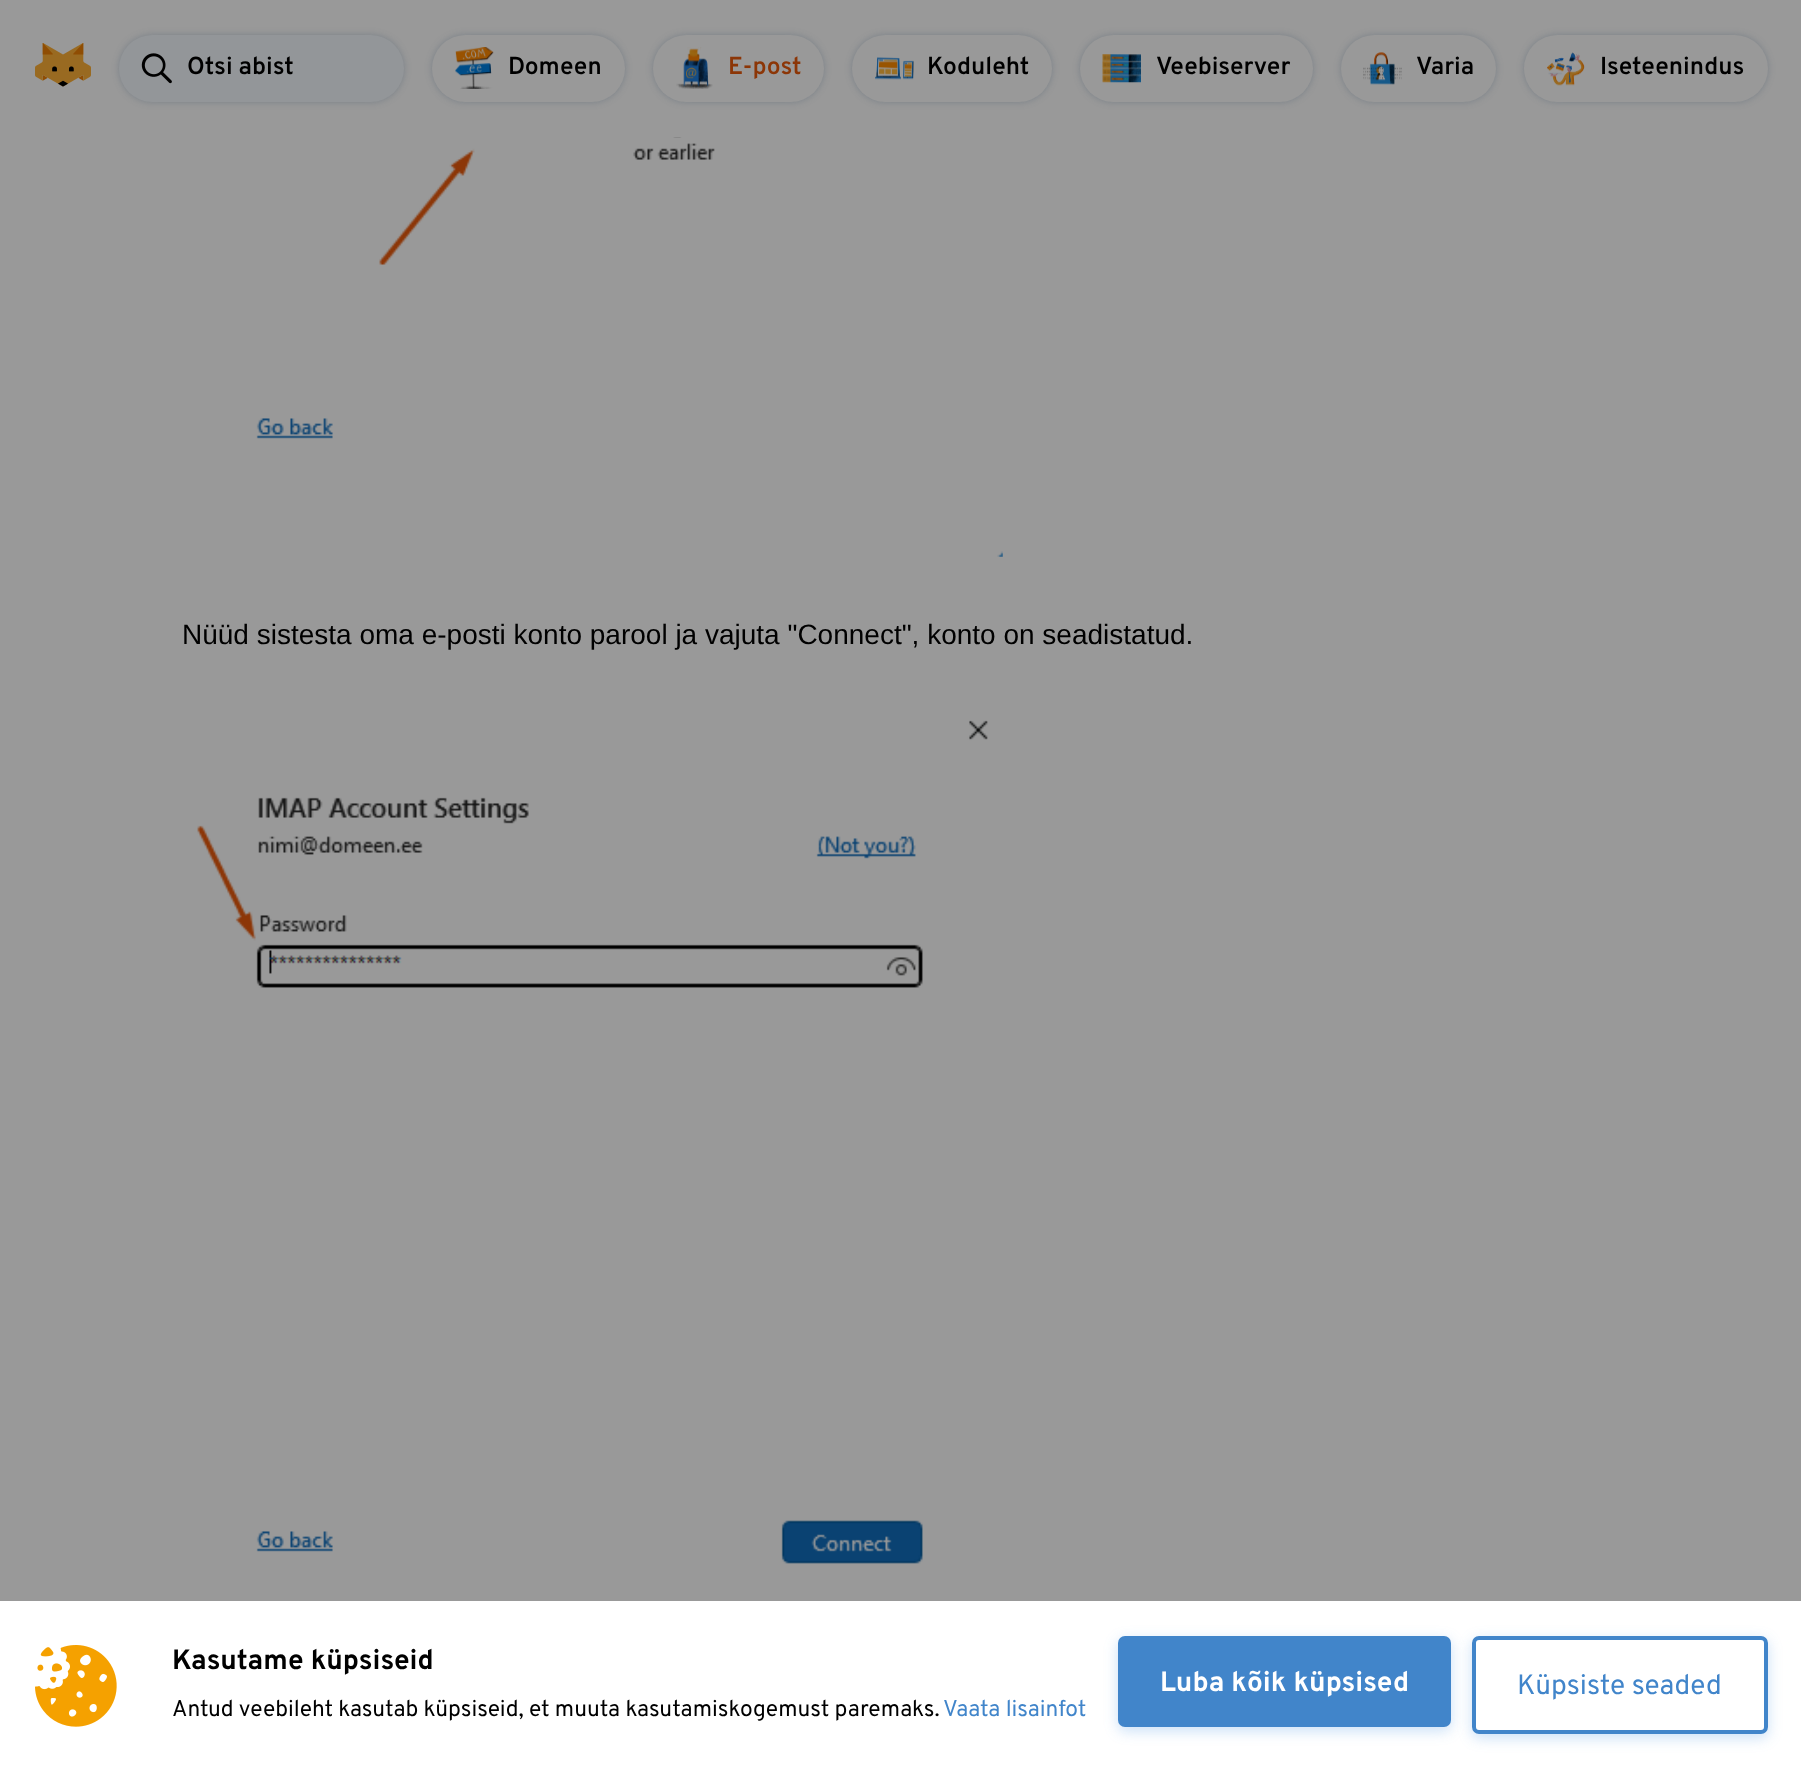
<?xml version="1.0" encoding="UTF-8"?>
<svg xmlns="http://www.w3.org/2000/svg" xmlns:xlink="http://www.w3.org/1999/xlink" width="1801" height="1768">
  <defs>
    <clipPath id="clip1"><path d="M 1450 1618 h 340 v 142 h -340 z m 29 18 h 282 c 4 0 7 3 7 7 v 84 c 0 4 -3 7 -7 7 h -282 c -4 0 -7 -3 -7 -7 v -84 c 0 -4 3 -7 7 -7 z" clip-rule="evenodd" /></clipPath>
  </defs>
  <rect width="100%" height="100%" fill="#999999" />
  <image x="35" y="43" width="56" height="44" xlink:href="image1.png" />
  <rect x="119" y="35" width="285" height="67" rx="33.5" fill="#384f65" fill-opacity="0.32" filter="blur(3.5px)" />
  <rect x="119" y="35" width="285" height="67" rx="33.5" fill="#939699" />
  <image x="141" y="53" width="31" height="31" xlink:href="image2.png" />
  <rect x="432" y="35" width="193" height="67" rx="33.5" fill="#384f65" fill-opacity="0.32" filter="blur(3.5px)" />
  <rect x="432" y="35" width="193" height="67" rx="33.5" fill="#999999" />
  <image x="455" y="47" width="39" height="42" xlink:href="image3.png" />
  <rect x="653" y="35" width="171" height="67" rx="33.5" fill="#384f65" fill-opacity="0.32" filter="blur(3.5px)" />
  <rect x="653" y="35" width="171" height="67" rx="33.5" fill="#999999" />
  <image x="676" y="47" width="37" height="42" xlink:href="image4.png" />
  <rect x="852" y="35" width="200" height="67" rx="33.5" fill="#384f65" fill-opacity="0.32" filter="blur(3.5px)" />
  <rect x="852" y="35" width="200" height="67" rx="33.5" fill="#999999" />
  <image x="875" y="57" width="39" height="23" xlink:href="image5.png" />
  <rect x="1080" y="35" width="233" height="67" rx="33.5" fill="#384f65" fill-opacity="0.32" filter="blur(3.5px)" />
  <rect x="1080" y="35" width="233" height="67" rx="33.5" fill="#999999" />
  <image x="1102" y="54" width="39" height="29" xlink:href="image6.png" />
  <rect x="1341" y="35" width="155" height="67" rx="33.5" fill="#384f65" fill-opacity="0.32" filter="blur(3.5px)" />
  <rect x="1341" y="35" width="155" height="67" rx="33.5" fill="#999999" />
  <image x="1363" y="52" width="39" height="33" xlink:href="image7.png" />
  <rect x="1524" y="35" width="244" height="67" rx="33.5" fill="#384f65" fill-opacity="0.32" filter="blur(3.5px)" />
  <rect x="1524" y="35" width="244" height="67" rx="33.5" fill="#999999" />
  <image x="1547" y="52" width="38" height="34" xlink:href="image8.png" />
  <image x="256" y="137" width="747" height="420" xlink:href="image9.png" />
  <image x="197" y="720" width="791" height="844" xlink:href="image10.png" />
  <rect y="1601" width="1801" height="167" fill="#ffffff" />
  <image x="35" y="1645" width="82" height="82" xlink:href="image11.png" />
  <rect x="1118" y="1640" width="333" height="91" rx="7" fill="#217fde" fill-opacity="0.24" filter="blur(7px)" />
  <rect x="1118" y="1636" width="333" height="91" rx="7" fill="#4185ca" />
  <g clip-path="url(#clip1)">
    <rect x="1472" y="1640" width="296" height="98" rx="7" fill="#217fde" fill-opacity="0.24" filter="blur(7px)" />
  </g>
  <rect x="1474" y="1638" width="292" height="94" rx="5" fill="none" stroke="#4185ca" stroke-width="4" />
  <text x="187" y="74" style="font-family: Overpass; font-size: 24.5px; font-weight: 600; fill: #000000">Otsi abist</text>
  <text x="508" y="74" style="font-family: Overpass; font-size: 24.5px; font-weight: 600; fill: #000000">Domeen</text>
  <text x="728" y="74" style="font-family: Overpass; font-size: 24.5px; font-weight: 600; fill: #8c3607">E-post</text>
  <text x="927" y="74" style="font-family: Overpass; font-size: 24.5px; font-weight: 600; fill: #000000">Koduleht</text>
  <text x="1156" y="74" style="font-family: Overpass; font-size: 24.5px; font-weight: 600; fill: #000000">Veebiserver</text>
  <text x="1416" y="74" style="font-family: Overpass; font-size: 24.5px; font-weight: 600; fill: #000000">Varia</text>
  <text x="1600" y="74" style="font-family: Overpass; font-size: 24.5px; font-weight: 600; fill: #000000">Iseteenindus</text>
  <text x="182" y="644" style="font-family: Liberation Sans; font-size: 28px; fill: #000000">Nüüd sistesta oma e-posti konto parool ja vajuta "Connect", konto on seadistatud.</text>
  <text x="172" y="1669" style="font-family: Overpass; font-size: 28px; font-weight: bold; fill: #000000">Kasutame küpsiseid</text>
  <text x="172" y="1716" style="font-family: Overpass; font-size: 22.75px; fill: #000000">Antud veebileht kasutab küpsiseid, et muuta kasutamiskogemust paremaks.</text>
  <text x="943" y="1716" style="font-family: Overpass; font-size: 22.75px; fill: #4185ca">Vaata lisainfot</text>
  <text x="1160" y="1691" style="font-family: Overpass; font-size: 28px; font-weight: bold; fill: #ffffff">Luba kõik küpsised</text>
  <text x="1517" y="1694" style="font-family: Overpass; font-size: 28px; fill: #4185ca">Küpsiste seaded</text>
</svg>
